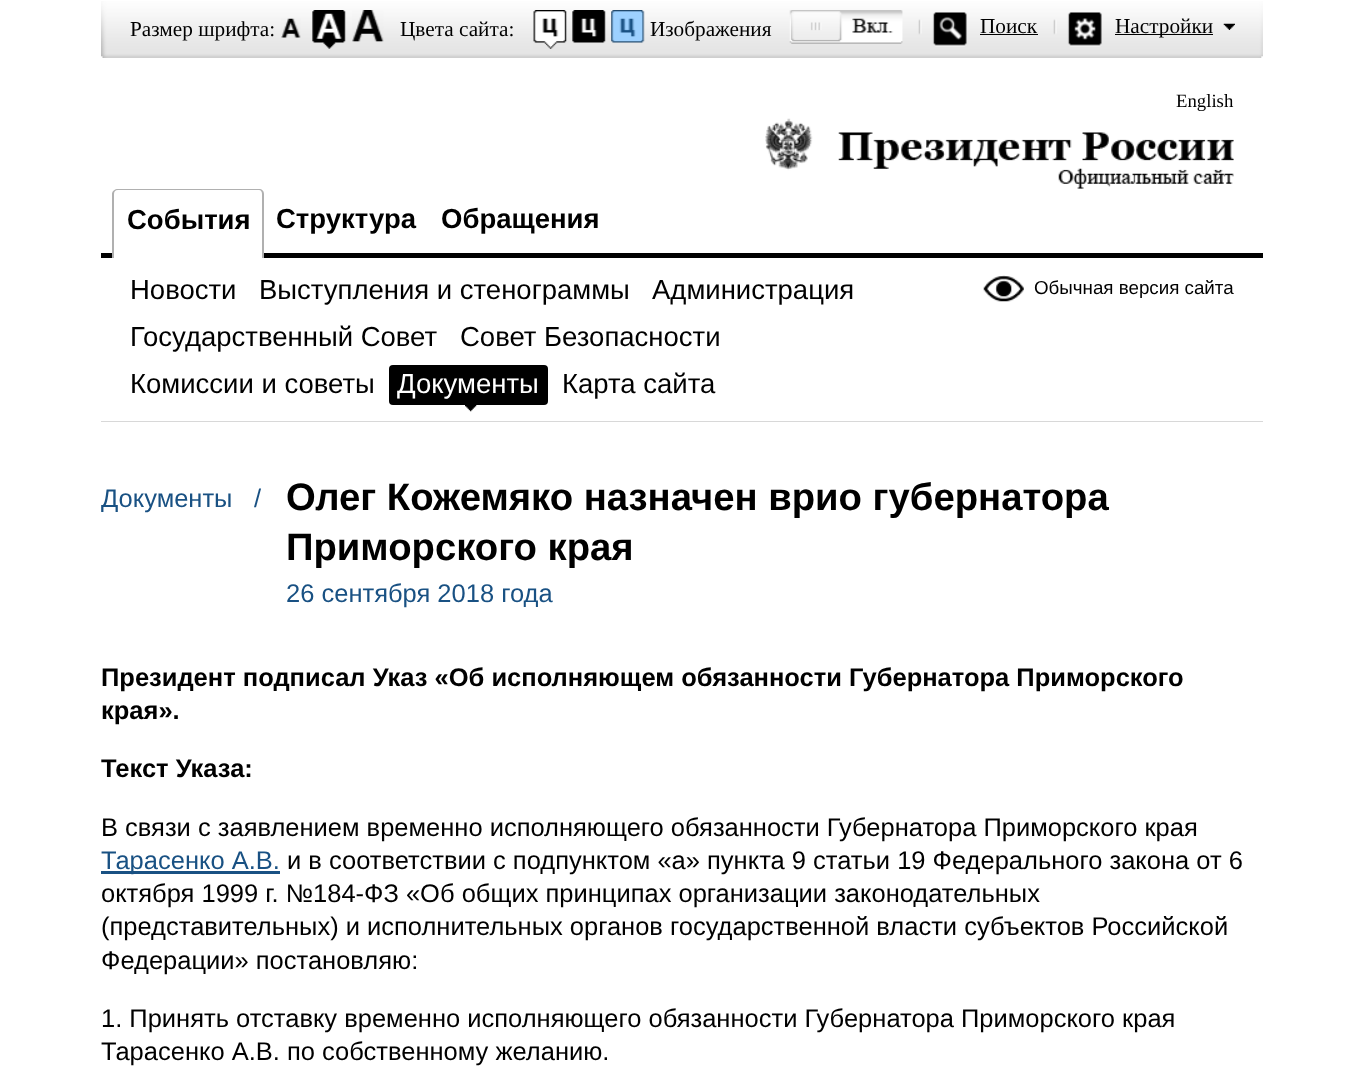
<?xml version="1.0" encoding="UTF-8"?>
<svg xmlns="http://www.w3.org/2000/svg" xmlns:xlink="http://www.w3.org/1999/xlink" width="1363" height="1091">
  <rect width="100%" height="100%" fill="#ffffff" />
  <image x="101" y="1" width="1162" height="57" xlink:href="image1.png" />
  <image x="281" y="18" width="20" height="20" xlink:href="image2.png" />
  <image x="312" y="10" width="34" height="39" xlink:href="image3.png" />
  <image x="352" y="10" width="32" height="32" xlink:href="image4.png" />
  <image x="533" y="10" width="34" height="39" xlink:href="image5.png" />
  <image x="572" y="10" width="34" height="33" xlink:href="image6.png" />
  <image x="611" y="10" width="34" height="33" xlink:href="image7.png" />
  <image x="789" y="10" width="114" height="34" xlink:href="image8.png" />
  <image x="918" y="12" width="49" height="35" xlink:href="image9.png" />
  <rect x="980" y="34" width="58" height="1" fill="#000000" />
  <image x="1053" y="12" width="49" height="35" xlink:href="image10.png" />
  <rect x="1115" y="34" width="98" height="1" fill="#000000" />
  <image x="1223" y="23" width="12" height="7" xlink:href="image11.png" />
  <image x="765" y="118" width="469" height="71" xlink:href="image12.png" />
  <rect x="101" y="421" width="1162" height="1" fill="#d8d8d8" />
  <rect x="101" y="253" width="1162" height="5" fill="#000000" />
  <path d="M 118 189 h 141 c 3 0 5 2 5 5 v 64 h -151 v -64 c 0 -3 2 -5 5 -5 z" fill="#ffffff" />
  <path d="M 118 189 h 141 c 3 0 5 2 5 5 v 64 h -152 v -64 c 0 -3 3 -5 6 -5 z m 0 1 h 141 c 2 0 3 2 3 4 v 64 h -148 v -64 c 0 -2 1 -4 4 -4 z" fill="#b0b0b0" fill-rule="evenodd" />
  <image x="465" y="405" width="12" height="7" xlink:href="image13.png" />
  <rect x="389" y="365" width="159" height="40" rx="4" fill="#000000" />
  <image x="983" y="275" width="41" height="27" xlink:href="image14.png" />
  <rect x="101" y="871" width="179" height="3" fill="#195183" />
  <text x="130" y="36" style="font-family: Liberation Serif; font-size: 21.25px; fill: #000000">Размер шрифта:</text>
  <text x="400" y="36" style="font-family: Liberation Serif; font-size: 21.25px; fill: #000000">Цвета сайта:</text>
  <text x="650" y="36" style="font-family: Liberation Serif; font-size: 21.25px; fill: #000000">Изображения</text>
  <text x="980" y="33" style="font-family: Liberation Serif; font-size: 21.25px; fill: #000000">Поиск</text>
  <text x="1115" y="33" style="font-family: Liberation Serif; font-size: 21.25px; fill: #000000">Настройки</text>
  <text x="1176" y="107" style="font-family: Liberation Serif; font-size: 18.75px; fill: #000000">English</text>
  <text x="127" y="229" style="font-family: Liberation Sans; font-size: 27.5px; font-weight: bold; fill: #000000">События</text>
  <text x="276" y="228" style="font-family: Liberation Sans; font-size: 27.5px; font-weight: bold; fill: #000000">Структура</text>
  <text x="441" y="228" style="font-family: Liberation Sans; font-size: 27.5px; font-weight: bold; fill: #000000">Обращения</text>
  <text x="130" y="299" style="font-family: Liberation Sans; font-size: 27.5px; fill: #000000">Новости</text>
  <text x="259" y="299" style="font-family: Liberation Sans; font-size: 27.5px; fill: #000000">Выступления и стенограммы</text>
  <text x="652" y="299" style="font-family: Liberation Sans; font-size: 27.5px; fill: #000000">Администрация</text>
  <text x="130" y="346" style="font-family: Liberation Sans; font-size: 27.5px; fill: #000000">Государственный Совет</text>
  <text x="460" y="346" style="font-family: Liberation Sans; font-size: 27.5px; fill: #000000">Совет Безопасности</text>
  <text x="130" y="393" style="font-family: Liberation Sans; font-size: 27.5px; fill: #000000">Комиссии и советы</text>
  <text x="397" y="393" style="font-family: Liberation Sans; font-size: 27.5px; fill: #ffffff">Документы</text>
  <text x="562" y="393" style="font-family: Liberation Sans; font-size: 27.5px; fill: #000000">Карта сайта</text>
  <text x="1034" y="294" style="font-family: Liberation Sans; font-size: 18.75px; fill: #000000">Обычная версия сайта</text>
  <text x="101" y="507" style="font-family: Liberation Sans; font-size: 25.5px; fill: #195183">Документы</text>
  <text x="254" y="507" style="font-family: Liberation Sans; font-size: 25.5px; fill: #195183">/</text>
  <text x="286" y="510" style="font-family: Liberation Sans; font-size: 38.25px; font-weight: bold; fill: #000000">Олег Кожемяко назначен врио губернатора</text>
  <text x="286" y="560" style="font-family: Liberation Sans; font-size: 38.25px; font-weight: bold; fill: #000000">Приморского края</text>
  <text x="286" y="602" style="font-family: Liberation Sans; font-size: 25.5px; fill: #195183">26 сентября 2018 года</text>
  <text x="101" y="686" style="font-family: Liberation Sans; font-size: 25.5px; font-weight: bold; fill: #000000">Президент подписал Указ «Об исполняющем обязанности Губернатора Приморского</text>
  <text x="101" y="719" style="font-family: Liberation Sans; font-size: 25.5px; font-weight: bold; fill: #000000">края».</text>
  <text x="101" y="777" style="font-family: Liberation Sans; font-size: 25.5px; font-weight: bold; fill: #000000">Текст Указа:</text>
  <text x="101" y="836" style="font-family: Liberation Sans; font-size: 25.5px; fill: #000000">В связи с заявлением временно исполняющего обязанности Губернатора Приморского края</text>
  <text x="101" y="869" style="font-family: Liberation Sans; font-size: 25.5px; fill: #195183">Тарасенко А.В.</text>
  <text x="287" y="869" style="font-family: Liberation Sans; font-size: 25.5px; fill: #000000">и в соответствии с подпунктом «а» пункта 9 статьи 19 Федерального закона от 6</text>
  <text x="101" y="902" style="font-family: Liberation Sans; font-size: 25.5px; fill: #000000">октября 1999 г. №184-ФЗ «Об общих принципах организации законодательных</text>
  <text x="101" y="935" style="font-family: Liberation Sans; font-size: 25.5px; fill: #000000">(представительных) и исполнительных органов государственной власти субъектов Российской</text>
  <text x="101" y="969" style="font-family: Liberation Sans; font-size: 25.5px; fill: #000000">Федерации» постановляю:</text>
  <text x="101" y="1027" style="font-family: Liberation Sans; font-size: 25.5px; fill: #000000">1. Принять отставку временно исполняющего обязанности Губернатора Приморского края</text>
  <text x="101" y="1060" style="font-family: Liberation Sans; font-size: 25.5px; fill: #000000">Тарасенко А.В. по собственному желанию.</text>
</svg>
